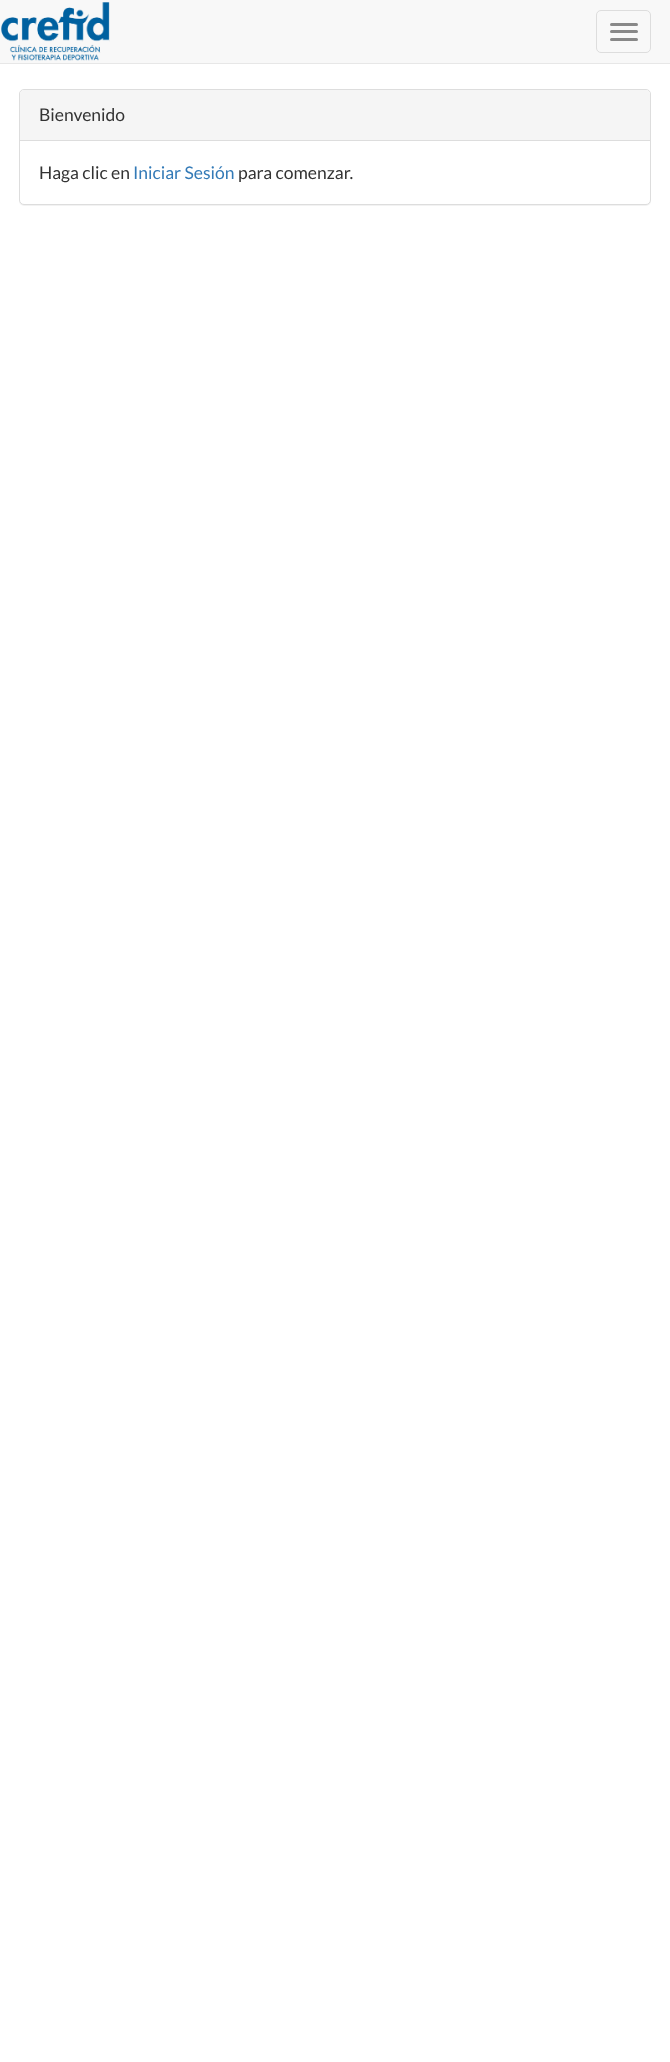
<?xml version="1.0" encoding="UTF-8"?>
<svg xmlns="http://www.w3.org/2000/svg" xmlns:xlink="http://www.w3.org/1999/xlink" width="670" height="2062">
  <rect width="100%" height="100%" fill="#ffffff" />
  <rect width="670" height="63" fill="#f8f8f8" />
  <rect y="63" width="670" height="1" fill="#e7e7e7" />
  <image x="1" y="2" width="109" height="59" xlink:href="image1.png" />
  <rect x="596.5" y="10.5" width="54" height="42" rx="4.5" fill="none" stroke="#dddddd" />
  <rect x="610" y="23" width="28" height="3" rx="1.5" fill="#888888" />
  <rect x="610" y="30" width="28" height="3" rx="1.5" fill="#888888" />
  <rect x="610" y="38" width="28" height="3" rx="1.5" fill="#888888" />
  <rect x="19" y="90" width="632" height="116" rx="5" fill="#000000" fill-opacity="0.05" filter="blur(0.5px)" />
  <rect x="19.5" y="89.5" width="631" height="115" rx="4.5" fill="#ffffff" stroke="#dddddd" />
  <path d="M 24 90 h 622 c 2 0 4 2 4 4 v 47 h -630 v -47 c 0 -2 2 -4 4 -4 z" fill="#f5f5f5" />
  <rect x="20" y="140" width="630" height="1" fill="#dddddd" />
  <text x="39" y="121" style="font-family: Lato; font-size: 17.5px; fill: #333333">Bienvenido</text>
  <text x="39" y="179" style="font-family: Lato; font-size: 17.5px; fill: #333333">Haga clic en</text>
  <text x="133" y="179" style="font-family: Lato; font-size: 17.5px; fill: #337ab7">Iniciar Sesión</text>
  <text x="238" y="179" style="font-family: Lato; font-size: 17.5px; fill: #333333">para comenzar.</text>
</svg>
